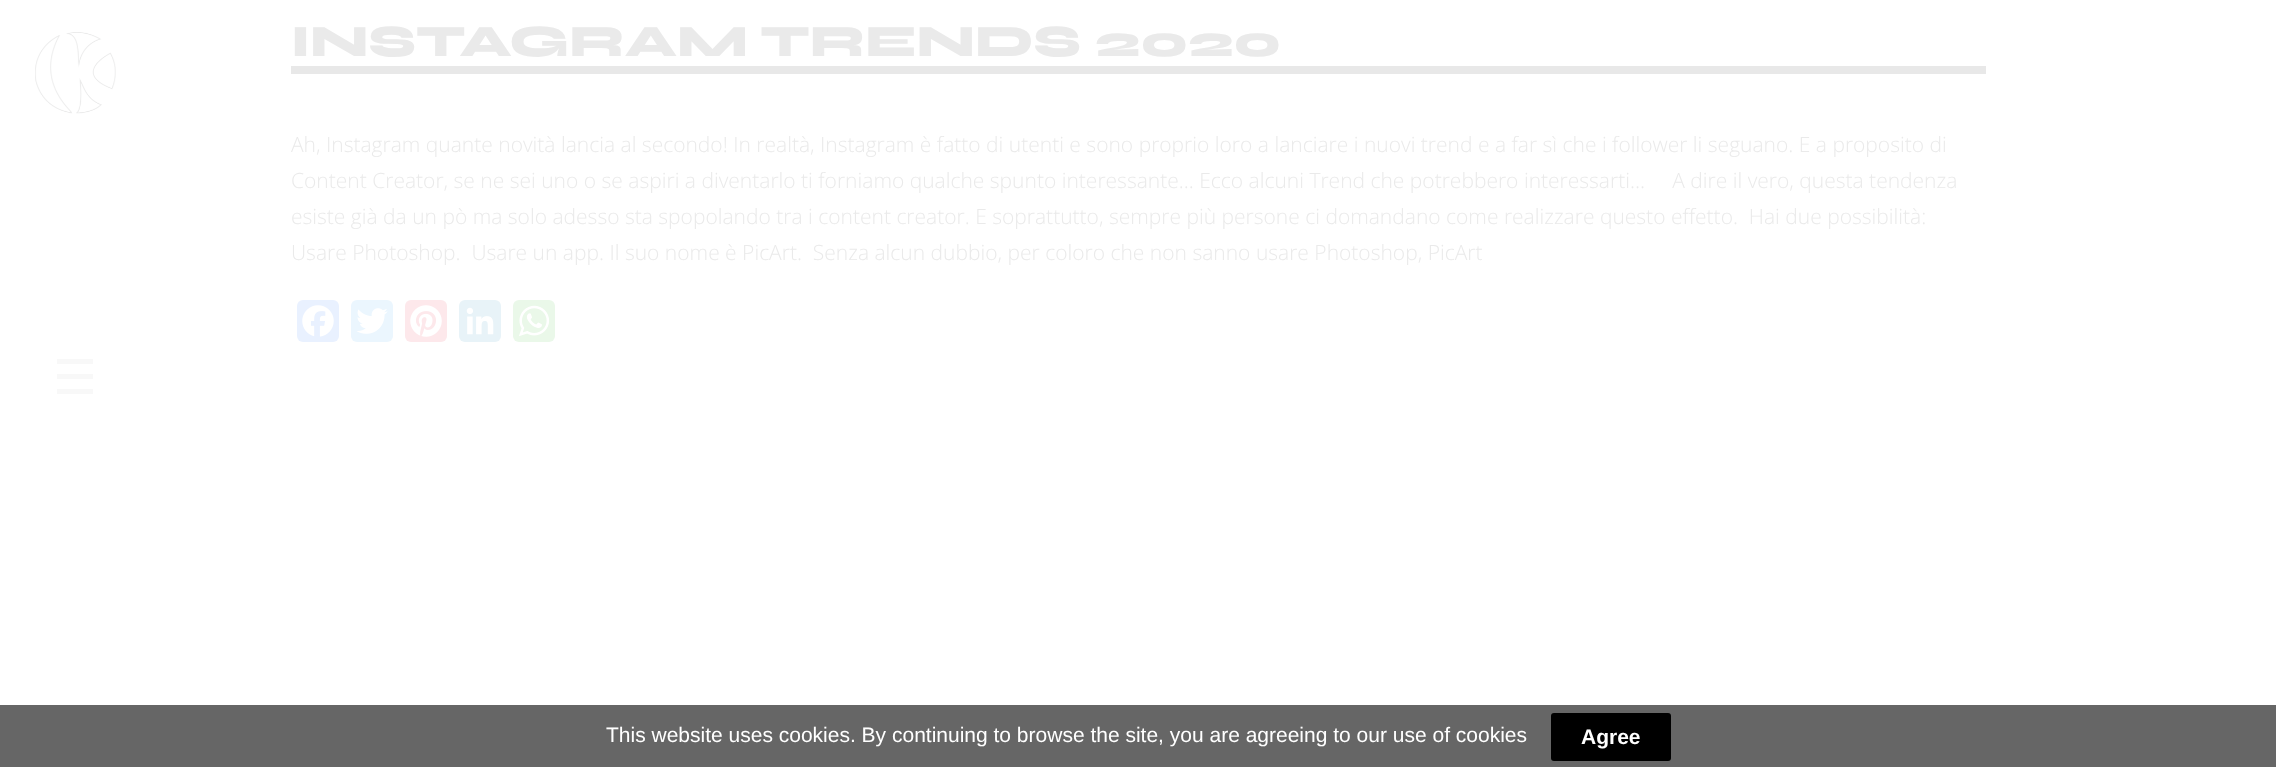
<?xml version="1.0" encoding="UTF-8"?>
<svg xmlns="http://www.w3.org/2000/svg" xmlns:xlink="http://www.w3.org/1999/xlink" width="2276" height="767">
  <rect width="100%" height="100%" fill="#ffffff" />
  <rect y="705" width="2276" height="62" fill="#666666" />
  <image x="35" y="32" width="81" height="82" xlink:href="image1.png" />
  <rect x="57" y="359" width="36" height="5" fill="#f8f8f8" />
  <rect x="57" y="374" width="36" height="5" fill="#f8f8f8" />
  <rect x="57" y="389" width="36" height="5" fill="#f8f8f8" />
  <rect x="291" y="66" width="1695" height="8" fill="#e8e8e8" />
  <rect x="297" y="300" width="42" height="42" rx="6" fill="#e9f1ff" />
  <image x="302" y="305" width="32" height="32" xlink:href="image2.png" />
  <rect x="351" y="300" width="42" height="42" rx="6" fill="#ebf6fe" />
  <image x="356" y="308" width="32" height="26" xlink:href="image3.png" />
  <rect x="405" y="300" width="42" height="42" rx="6" fill="#fde8eb" />
  <image x="410" y="305" width="32" height="32" xlink:href="image4.png" />
  <rect x="459" y="300" width="42" height="42" rx="6" fill="#e8f3f8" />
  <image x="466" y="307" width="28" height="28" xlink:href="image5.png" />
  <rect x="513" y="300" width="42" height="42" rx="6" fill="#eaf8e9" />
  <image x="519" y="305" width="31" height="32" xlink:href="image6.png" />
  <rect x="1551" y="713" width="120" height="48" rx="3" fill="#000000" />
  <text x="291" y="56" style="font-family: Syne; font-size: 45px; font-weight: 800; fill: #eaeaea">INSTAGRAM TRENDS 2020</text>
  <text x="291" y="152" style="font-family: Open Sans; font-size: 21px; font-weight: 300; fill: #eaeaea">Ah, Instagram quante novità lancia al secondo! In realtà, Instagram è fatto di utenti e sono proprio loro a lanciare i nuovi trend e a far sì che i follower li seguano. E a proposito di</text>
  <text x="291" y="188" style="font-family: Open Sans; font-size: 21px; font-weight: 300; fill: #eaeaea" xml:space="preserve">Content Creator, se ne sei uno o se aspiri a diventarlo ti forniamo qualche spunto interessante… Ecco alcuni Trend che potrebbero interessarti…     A dire il vero, questa tendenza</text>
  <text x="291" y="224" style="font-family: Open Sans; font-size: 21px; font-weight: 300; fill: #eaeaea" xml:space="preserve">esiste già da un pò ma solo adesso sta spopolando tra i content creator. E soprattutto, sempre più persone ci domandano come realizzare questo effetto.  Hai due possibilità:</text>
  <text x="291" y="260" style="font-family: Open Sans; font-size: 21px; font-weight: 300; fill: #eaeaea" xml:space="preserve">Usare Photoshop.  Usare un app. Il suo nome è PicArt.  Senza alcun dubbio, per coloro che non sanno usare Photoshop, PicArt</text>
  <text x="606" y="742" style="font-family: Liberation Sans; font-size: 21px; fill: #ffffff">This website uses cookies. By continuing to browse the site, you are agreeing to our use of cookies</text>
  <text x="1581" y="744" style="font-family: Liberation Sans; font-size: 21px; font-weight: bold; fill: #ffffff">Agree</text>
</svg>
